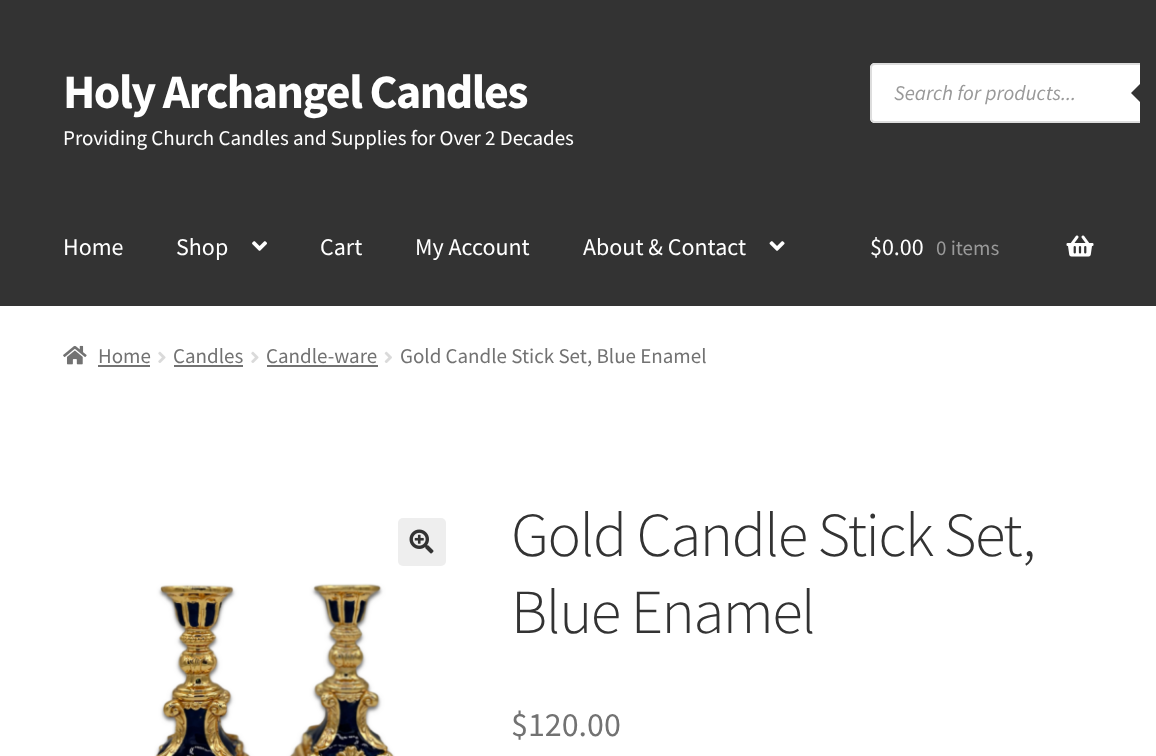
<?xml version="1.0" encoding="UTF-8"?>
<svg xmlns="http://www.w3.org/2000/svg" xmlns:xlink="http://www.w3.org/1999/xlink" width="1156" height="756">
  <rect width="100%" height="100%" fill="#ffffff" />
  <rect width="1156" height="306" fill="#333333" />
  <path d="M 875 63 h 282 v 60 h -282 c -3 0 -5 -2 -5 -5 v -50 c 0 -3 2 -5 5 -5 z" fill="#ffffff" />
  <rect x="871" y="64" width="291" height="58" rx="4" fill="none" stroke="#dddddd" stroke-width="2" />
  <rect x="1140" y="63" width="16" height="60" fill="#333333" />
  <path d="M 1143 81 v 24 l -12 -12 z" fill="#333333" />
  <image x="252" y="241" width="15" height="10" xlink:href="image1.png" />
  <image x="769" y="241" width="16" height="10" xlink:href="image2.png" />
  <image x="1066" y="235" width="28" height="22" xlink:href="image3.png" />
  <image x="63" y="345" width="24" height="20" xlink:href="image4.png" />
  <rect x="98" y="365" width="52" height="2" fill="#727272" />
  <image x="158" y="351" width="8" height="12" xlink:href="image5.png" />
  <rect x="174" y="365" width="69" height="2" fill="#727272" />
  <image x="251" y="351" width="8" height="12" xlink:href="image5.png" />
  <rect x="267" y="365" width="111" height="2" fill="#727272" />
  <image x="384" y="351" width="8" height="12" xlink:href="image6.png" />
  <rect x="398" y="518" width="48" height="48" rx="5" fill="#eeeeee" />
  <image x="409" y="529" width="25" height="25" xlink:href="image7.png" />
  <image x="154" y="583" width="241" height="173" xlink:href="image8.png" />
  <text x="63" y="108" style="font-family: Source Sans Pro; font-size: 48px; font-weight: bold; letter-spacing: -1.5px; fill: #ffffff">Holy Archangel Candles</text>
  <text x="63" y="145" style="font-family: Source Sans Pro; font-size: 21px; fill: #ffffff">Providing Church Candles and Supplies for Over 2 Decades</text>
  <text x="894" y="100" style="font-family: Source Sans Pro; font-size: 21px; font-style: italic; fill: #999999">Search for products...</text>
  <text x="63" y="255" style="font-family: Source Sans Pro; font-size: 24px; fill: #ffffff">Home</text>
  <text x="176" y="255" style="font-family: Source Sans Pro; font-size: 24px; fill: #ffffff">Shop</text>
  <text x="320" y="255" style="font-family: Source Sans Pro; font-size: 24px; fill: #ffffff">Cart</text>
  <text x="415" y="255" style="font-family: Source Sans Pro; font-size: 24px; fill: #ffffff">My Account</text>
  <text x="583" y="255" style="font-family: Source Sans Pro; font-size: 24px; fill: #ffffff">About &amp; Contact</text>
  <text x="870" y="255" style="font-family: Source Sans Pro; font-size: 24px; fill: #ffffff">$0.00</text>
  <text x="936" y="255" style="font-family: Source Sans Pro; font-size: 21px; fill: #999999">0 items</text>
  <text x="98" y="363" style="font-family: Source Sans Pro; font-size: 21px; fill: #727272">Home</text>
  <text x="173" y="363" style="font-family: Source Sans Pro; font-size: 21px; fill: #727272">Candles</text>
  <text x="266" y="363" style="font-family: Source Sans Pro; font-size: 21px; fill: #727272">Candle-ware</text>
  <text x="400" y="363" style="font-family: Source Sans Pro; font-size: 21px; fill: #727272">Gold Candle Stick Set, Blue Enamel</text>
  <text x="511" y="556" style="font-family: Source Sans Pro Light; font-size: 62.75px; font-weight: 300; letter-spacing: -1.5px; fill: #333333">Gold Candle Stick Set,</text>
  <text x="511" y="633" style="font-family: Source Sans Pro Light; font-size: 62.75px; font-weight: 300; letter-spacing: -1.5px; fill: #333333">Blue Enamel</text>
  <text x="511" y="736" style="font-family: Source Sans Pro; font-size: 34px; fill: #727272">$120.00</text>
</svg>
